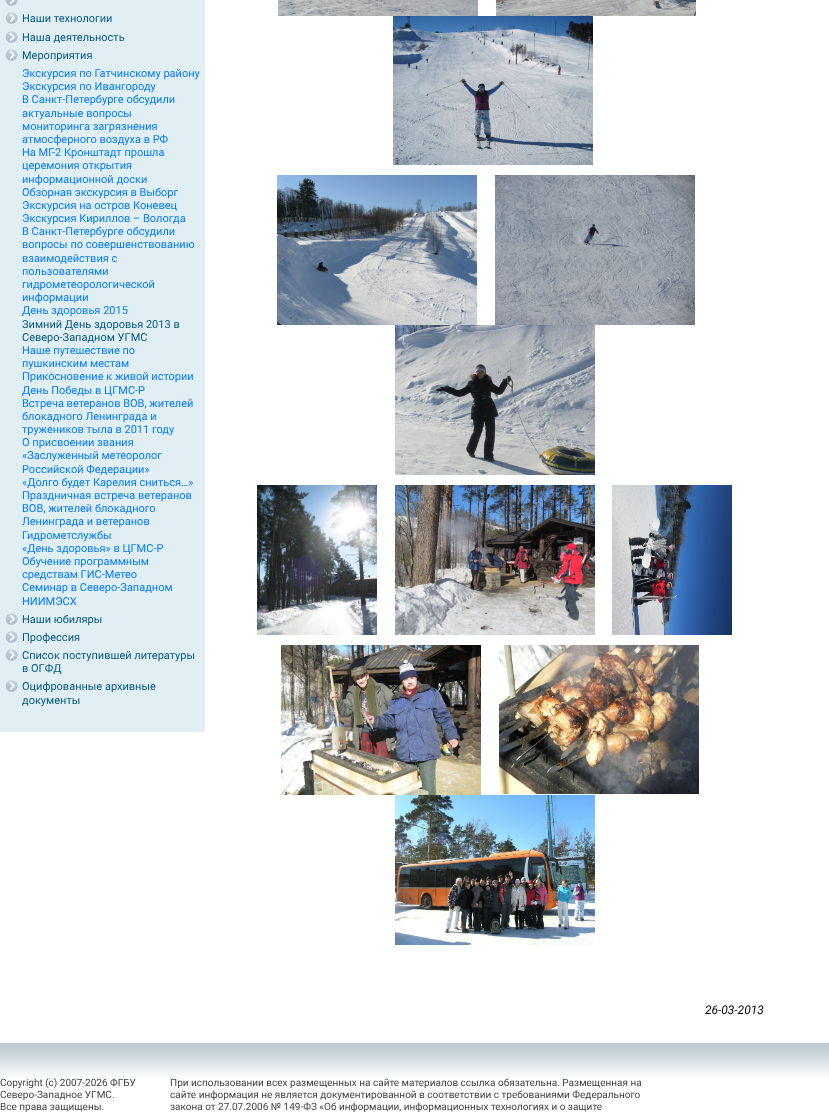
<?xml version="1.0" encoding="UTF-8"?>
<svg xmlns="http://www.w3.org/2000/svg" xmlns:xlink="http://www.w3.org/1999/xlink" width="829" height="1113">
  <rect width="100%" height="100%" fill="#ffffff" />
  <rect width="205" height="732" fill="#e1eef4" />
  <image x="5" y="0" width="13" height="6" xlink:href="image1.png" />
  <image x="5" y="12" width="13" height="12" xlink:href="image2.png" />
  <image x="5" y="31" width="13" height="12" xlink:href="image2.png" />
  <image x="5" y="49" width="13" height="12" xlink:href="image2.png" />
  <image x="5" y="613" width="13" height="12" xlink:href="image2.png" />
  <image x="5" y="631" width="13" height="12" xlink:href="image2.png" />
  <image x="5" y="649" width="13" height="12" xlink:href="image2.png" />
  <image x="5" y="680" width="13" height="12" xlink:href="image2.png" />
  <image x="278" y="0" width="200" height="16" xlink:href="image3.png" />
  <image x="496" y="0" width="200" height="16" xlink:href="image4.png" />
  <image x="393" y="16" width="200" height="149" xlink:href="image5.png" />
  <image x="277" y="175" width="200" height="150" xlink:href="image6.png" />
  <image x="495" y="175" width="200" height="150" xlink:href="image7.png" />
  <image x="395" y="325" width="200" height="150" xlink:href="image8.png" />
  <image x="257" y="485" width="120" height="150" xlink:href="image9.png" />
  <image x="395" y="485" width="200" height="150" xlink:href="image10.png" />
  <image x="612" y="485" width="120" height="150" xlink:href="image11.png" />
  <image x="281" y="645" width="200" height="150" xlink:href="image12.png" />
  <image x="499" y="645" width="200" height="149" xlink:href="image13.png" />
  <image x="395" y="795" width="200" height="150" xlink:href="image14.png" />
  <image x="0" y="1043" width="829" height="70" xlink:href="image15.png" />
  <text x="22" y="22" style="font-family: Roboto; font-size: 11px; fill: #025885">Наши технологии</text>
  <text x="22" y="41" style="font-family: Roboto; font-size: 11px; fill: #025885">Наша деятельность</text>
  <text x="22" y="59" style="font-family: Roboto; font-size: 11px; fill: #025885">Мероприятия</text>
  <text x="22" y="77" style="font-family: Roboto; font-size: 11px; fill: #007bff">Экскурсия по Гатчинскому району</text>
  <text x="22" y="90" style="font-family: Roboto; font-size: 11px; fill: #007bff">Экскурсия по Ивангороду</text>
  <text x="22" y="103" style="font-family: Roboto; font-size: 11px; fill: #007bff">В Санкт-Петербурге обсудили</text>
  <text x="22" y="117" style="font-family: Roboto; font-size: 11px; fill: #007bff">актуальные вопросы</text>
  <text x="22" y="130" style="font-family: Roboto; font-size: 11px; fill: #007bff">мониторинга загрязнения</text>
  <text x="22" y="143" style="font-family: Roboto; font-size: 11px; fill: #007bff">атмосферного воздуха в РФ</text>
  <text x="22" y="156" style="font-family: Roboto; font-size: 11px; fill: #007bff">На МГ-2 Кронштадт прошла</text>
  <text x="22" y="169" style="font-family: Roboto; font-size: 11px; fill: #007bff">церемония открытия</text>
  <text x="22" y="183" style="font-family: Roboto; font-size: 11px; fill: #007bff">информационной доски</text>
  <text x="22" y="196" style="font-family: Roboto; font-size: 11px; fill: #007bff">Обзорная экскурсия в Выборг</text>
  <text x="22" y="209" style="font-family: Roboto; font-size: 11px; fill: #007bff">Экскурсия на остров Коневец</text>
  <text x="22" y="222" style="font-family: Roboto; font-size: 11px; fill: #007bff">Экскурсия Кириллов – Вологда</text>
  <text x="22" y="235" style="font-family: Roboto; font-size: 11px; fill: #007bff">В Санкт-Петербурге обсудили</text>
  <text x="22" y="248" style="font-family: Roboto; font-size: 11px; fill: #007bff">вопросы по совершенствованию</text>
  <text x="22" y="262" style="font-family: Roboto; font-size: 11px; fill: #007bff">взаимодействия с</text>
  <text x="22" y="275" style="font-family: Roboto; font-size: 11px; fill: #007bff">пользователями</text>
  <text x="22" y="288" style="font-family: Roboto; font-size: 11px; fill: #007bff">гидрометеорологической</text>
  <text x="22" y="301" style="font-family: Roboto; font-size: 11px; fill: #007bff">информации</text>
  <text x="22" y="314" style="font-family: Roboto; font-size: 11px; fill: #007bff">День здоровья 2015</text>
  <text x="22" y="328" style="font-family: Roboto; font-size: 11px; fill: #025885">Зимний День здоровья 2013 в</text>
  <text x="22" y="341" style="font-family: Roboto; font-size: 11px; fill: #025885">Северо-Западном УГМС</text>
  <text x="22" y="354" style="font-family: Roboto; font-size: 11px; fill: #007bff">Наше путешествие по</text>
  <text x="22" y="367" style="font-family: Roboto; font-size: 11px; fill: #007bff">пушкинским местам</text>
  <text x="22" y="380" style="font-family: Roboto; font-size: 11px; fill: #007bff">Прикосновение к живой истории</text>
  <text x="22" y="394" style="font-family: Roboto; font-size: 11px; fill: #007bff">День Победы в ЦГМС-Р</text>
  <text x="22" y="407" style="font-family: Roboto; font-size: 11px; fill: #007bff">Встреча ветеранов ВОВ, жителей</text>
  <text x="22" y="420" style="font-family: Roboto; font-size: 11px; fill: #007bff">блокадного Ленинграда и</text>
  <text x="22" y="433" style="font-family: Roboto; font-size: 11px; fill: #007bff">тружеников тыла в 2011 году</text>
  <text x="22" y="446" style="font-family: Roboto; font-size: 11px; fill: #007bff">О присвоении звания</text>
  <text x="22" y="459" style="font-family: Roboto; font-size: 11px; fill: #007bff">«Заслуженный метеоролог</text>
  <text x="22" y="473" style="font-family: Roboto; font-size: 11px; fill: #007bff">Российской Федерации»</text>
  <text x="22" y="486" style="font-family: Roboto; font-size: 11px; fill: #007bff">«Долго будет Карелия сниться…»</text>
  <text x="22" y="499" style="font-family: Roboto; font-size: 11px; fill: #007bff">Праздничная встреча ветеранов</text>
  <text x="22" y="512" style="font-family: Roboto; font-size: 11px; fill: #007bff">ВОВ, жителей блокадного</text>
  <text x="22" y="525" style="font-family: Roboto; font-size: 11px; fill: #007bff">Ленинграда и ветеранов</text>
  <text x="22" y="539" style="font-family: Roboto; font-size: 11px; fill: #007bff">Гидрометслужбы</text>
  <text x="22" y="552" style="font-family: Roboto; font-size: 11px; fill: #007bff">«День здоровья» в ЦГМС-Р</text>
  <text x="22" y="565" style="font-family: Roboto; font-size: 11px; fill: #007bff">Обучение программным</text>
  <text x="22" y="578" style="font-family: Roboto; font-size: 11px; fill: #007bff">средствам ГИС-Метео</text>
  <text x="22" y="591" style="font-family: Roboto; font-size: 11px; fill: #007bff">Семинар в Северо-Западном</text>
  <text x="22" y="605" style="font-family: Roboto; font-size: 11px; fill: #007bff">НИИМЭСХ</text>
  <text x="22" y="623" style="font-family: Roboto; font-size: 11px; fill: #025885">Наши юбиляры</text>
  <text x="22" y="641" style="font-family: Roboto; font-size: 11px; fill: #025885">Профессия</text>
  <text x="22" y="659" style="font-family: Roboto; font-size: 11px; fill: #025885">Список поступившей литературы</text>
  <text x="22" y="672" style="font-family: Roboto; font-size: 11px; fill: #025885">в ОГФД</text>
  <text x="22" y="690" style="font-family: Roboto; font-size: 11px; fill: #025885">Оцифрованные архивные</text>
  <text x="22" y="704" style="font-family: Roboto; font-size: 11px; fill: #025885">документы</text>
  <text x="705" y="1014" style="font-family: Roboto; font-size: 12px; font-style: italic; fill: #000000">26-03-2013</text>
  <text x="0" y="1086" style="font-family: Roboto; font-size: 10px; fill: #413f3f">Copyright (c) 2007-2026 ФГБУ</text>
  <text x="0" y="1098" style="font-family: Roboto; font-size: 10px; fill: #413f3f">Северо-Западное УГМС.</text>
  <text x="0" y="1110" style="font-family: Roboto; font-size: 10px; fill: #413f3f">Все права защищены.</text>
  <text x="170" y="1086" style="font-family: Roboto; font-size: 10px; fill: #413f3f">При использовании всех размещенных на сайте материалов ссылка обязательна. Размещенная на</text>
  <text x="170" y="1098" style="font-family: Roboto; font-size: 10px; fill: #413f3f">сайте информация не является документированной в соответствии с требованиями Федерального</text>
  <text x="170" y="1110" style="font-family: Roboto; font-size: 10px; fill: #413f3f">закона от 27.07.2006 № 149-ФЗ «Об информации, информационных технологиях и о защите</text>
</svg>
